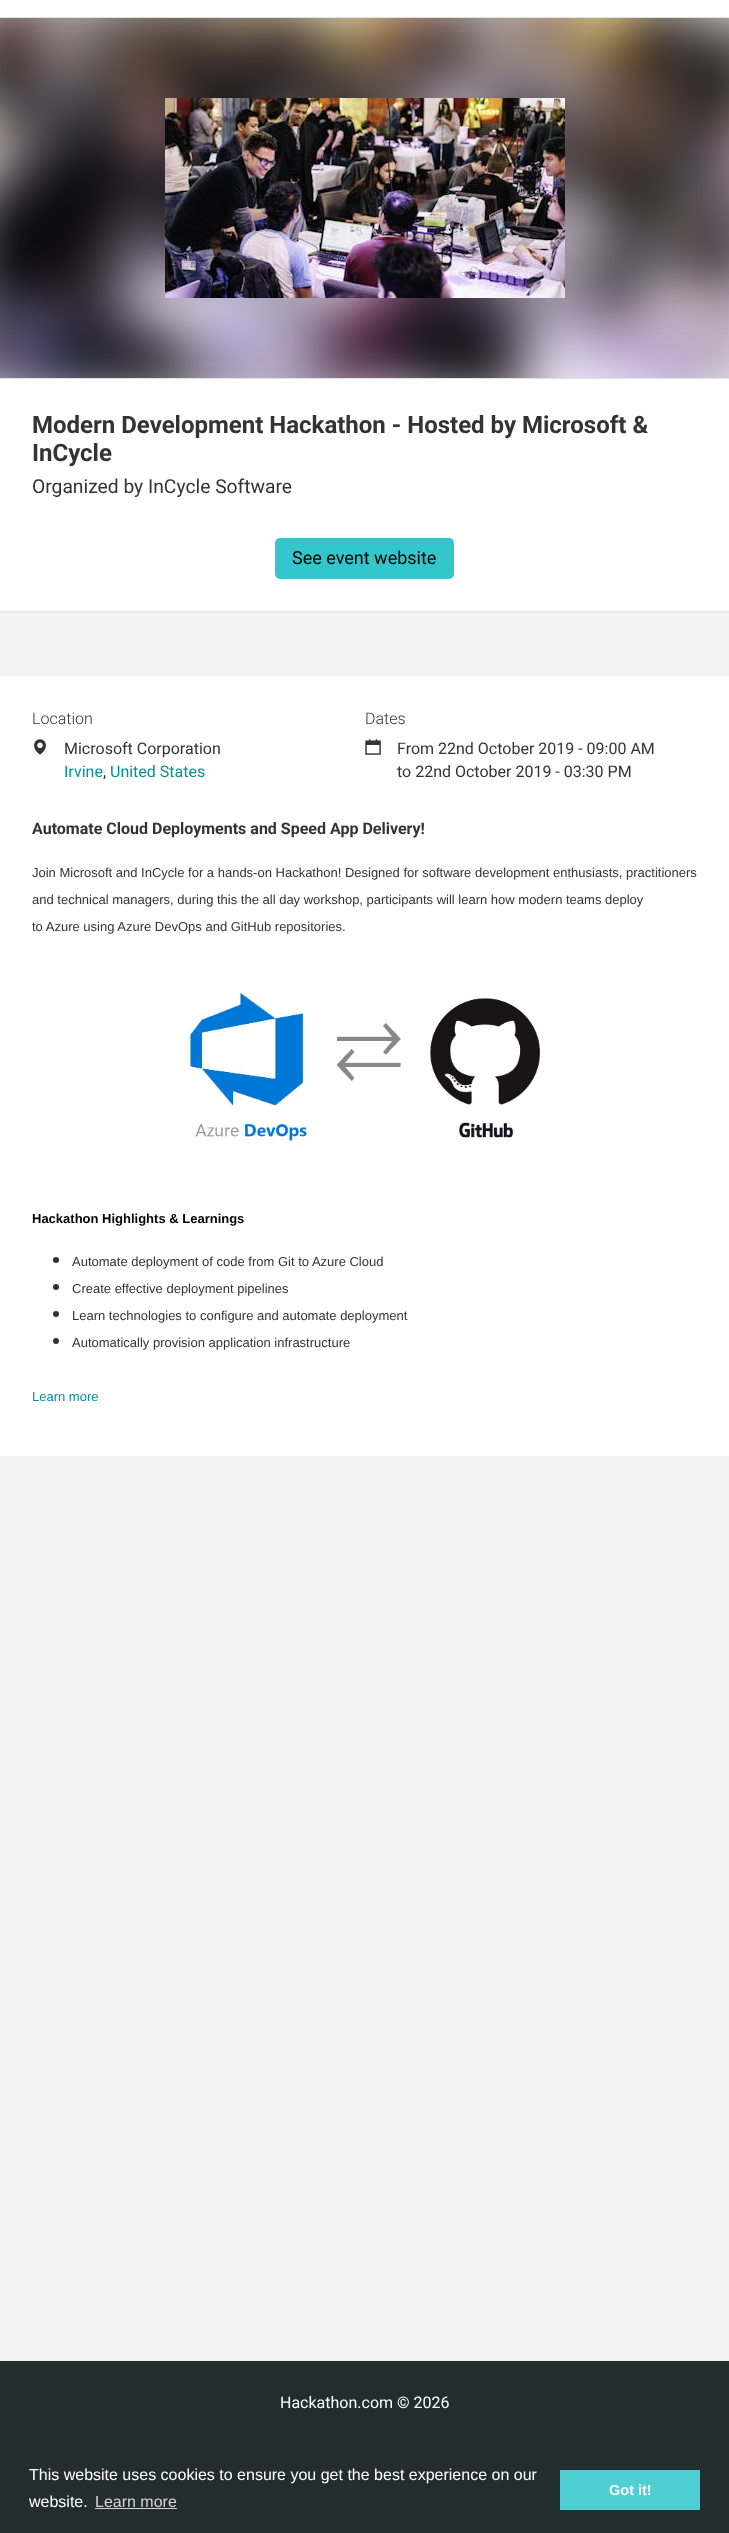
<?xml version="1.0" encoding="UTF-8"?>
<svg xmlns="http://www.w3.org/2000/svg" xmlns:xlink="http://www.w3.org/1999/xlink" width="729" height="2533">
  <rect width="100%" height="100%" fill="#ffffff" />
  <rect y="17" width="729" height="1" fill="#e2e0e0" />
  <rect y="18" width="729" height="2343" fill="#f2f2f2" />
  <image x="0" y="18" width="729" height="360" xlink:href="image1.png" />
  <image x="165" y="98" width="400" height="200" xlink:href="image2.png" />
  <rect y="379" width="729" height="232" fill="#ffffff" />
  <rect y="378" width="729" height="1" fill="#e2e0e0" />
  <rect y="611" width="729" height="1" fill="#e2e0e0" />
  <rect x="275" y="538" width="179" height="41" rx="5" fill="#33c7cc" />
  <rect y="676" width="729" height="780" fill="#ffffff" />
  <image x="34" y="739" width="12" height="16" xlink:href="image3.png" />
  <image x="365" y="739" width="16" height="16" xlink:href="image4.png" />
  <image x="188" y="991" width="352" height="150" xlink:href="image5.png" />
  <circle cx="56" cy="1260" r="3" fill="#333333" />
  <circle cx="56" cy="1287" r="3" fill="#333333" />
  <circle cx="56" cy="1314" r="3" fill="#333333" />
  <circle cx="56" cy="1341" r="3" fill="#333333" />
  <rect y="2361" width="729" height="172" fill="#242d2d" />
  <rect x="95" y="2508" width="82" height="1" fill="#d3d5d5" />
  <rect x="560" y="2470" width="140" height="40" fill="#4dcfd3" />
  <text x="32" y="433" style="font-family: Roboto; font-size: 24px; font-weight: bold; fill: #333333">Modern Development Hackathon - Hosted by Microsoft &amp;</text>
  <text x="32" y="461" style="font-family: Roboto; font-size: 24px; font-weight: bold; fill: #333333">InCycle</text>
  <text x="32" y="493" style="font-family: Roboto; font-size: 19.25px; fill: #333333">Organized by InCycle Software</text>
  <text x="292" y="564" style="font-family: Roboto; font-size: 18px; fill: #000000">See event website</text>
  <text x="32" y="724" style="font-family: Roboto; font-size: 16px; font-weight: 300; fill: #333333">Location</text>
  <text x="64" y="754" style="font-family: Roboto; font-size: 16px; fill: #333333">Microsoft Corporation</text>
  <text x="64" y="777" style="font-family: Roboto; font-size: 16px; fill: #00939e">Irvine</text>
  <text x="103" y="777" style="font-family: Roboto; font-size: 16px; fill: #333333">,</text>
  <text x="110" y="777" style="font-family: Roboto; font-size: 16px; fill: #00939e">United States</text>
  <text x="365" y="724" style="font-family: Roboto; font-size: 16px; font-weight: 300; fill: #333333">Dates</text>
  <text x="397" y="754" style="font-family: Roboto; font-size: 16px; fill: #333333">From 22nd October 2019 - 09:00 AM</text>
  <text x="397" y="777" style="font-family: Roboto; font-size: 16px; fill: #333333">to 22nd October 2019 - 03:30 PM</text>
  <text x="32" y="834" style="font-family: Roboto; font-size: 16px; font-weight: bold; fill: #333333">Automate Cloud Deployments and Speed App Delivery!</text>
  <text x="32" y="877" style="font-family: Liberation Sans; font-size: 13px; fill: #333333">Join Microsoft and InCycle for a hands-on Hackathon! Designed for software development enthusiasts, practitioners</text>
  <text x="32" y="904" style="font-family: Liberation Sans; font-size: 13px; fill: #333333">and technical managers, during this the all day workshop, participants will learn how modern teams deploy</text>
  <text x="32" y="931" style="font-family: Liberation Sans; font-size: 13px; fill: #333333">to Azure using Azure DevOps and GitHub repositories.</text>
  <text x="32" y="1223" style="font-family: Liberation Sans; font-size: 13px; font-weight: bold; fill: #000000">Hackathon Highlights &amp; Learnings</text>
  <text x="72" y="1266" style="font-family: Liberation Sans; font-size: 13px; fill: #333333">Automate deployment of code from Git to Azure Cloud</text>
  <text x="72" y="1293" style="font-family: Liberation Sans; font-size: 13px; fill: #333333">Create effective deployment pipelines</text>
  <text x="72" y="1320" style="font-family: Liberation Sans; font-size: 13px; fill: #333333">Learn technologies to configure and automate deployment</text>
  <text x="72" y="1347" style="font-family: Liberation Sans; font-size: 13px; fill: #333333">Automatically provision application infrastructure</text>
  <text x="32" y="1401" style="font-family: Liberation Sans; font-size: 13px; fill: #00939e">Learn more</text>
  <text x="280" y="2408" style="font-family: Roboto; font-size: 16px; fill: #ffffff">Hackathon.com © 2026</text>
  <text x="29" y="2480" style="font-family: Liberation Sans; font-size: 16px; fill: #ffffff">This website uses cookies to ensure you get the best experience on our</text>
  <text x="29" y="2507" style="font-family: Liberation Sans; font-size: 16px; fill: #ffffff">website.</text>
  <text x="95" y="2507" style="font-family: Liberation Sans; font-size: 16px; fill: #d3d5d5">Learn more</text>
  <text x="609" y="2495" style="font-family: Liberation Sans; font-size: 14.5px; font-weight: bold; fill: #ffffff">Got it!</text>
</svg>
